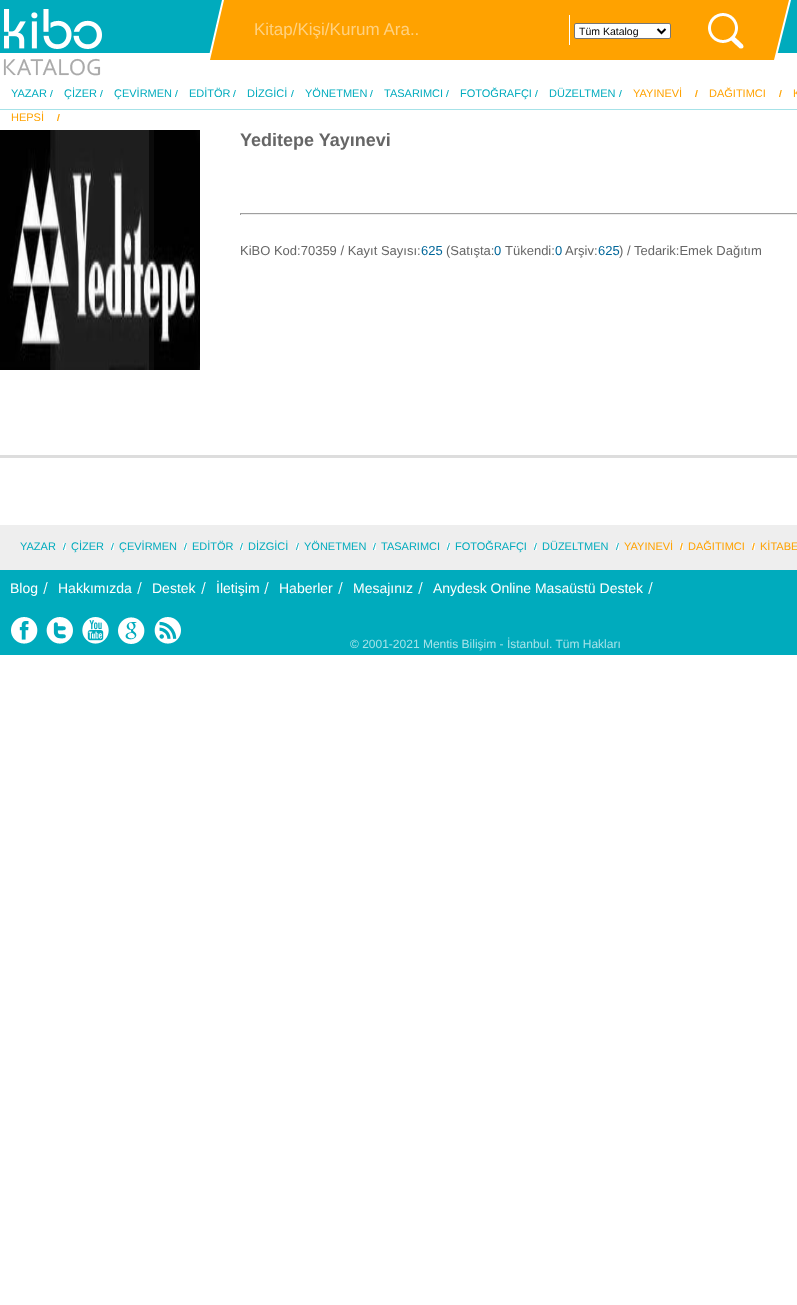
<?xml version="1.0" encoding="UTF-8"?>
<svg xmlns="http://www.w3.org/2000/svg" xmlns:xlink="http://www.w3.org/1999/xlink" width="797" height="1305">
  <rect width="100%" height="100%" fill="#ffffff" />
  <rect width="797" height="53" fill="#00abbd" />
  <image x="3" y="9" width="99" height="67" xlink:href="image1.png" />
  <image x="209" y="0" width="582" height="60" xlink:href="image2.png" />
  <rect x="569" y="15" width="1" height="30" fill="#ffffff" />
  <rect x="574.5" y="23.5" width="96" height="15" rx="1.5" fill="#ffffff" stroke="#767676" />
  <path d="M 657.5 29 l 4 4 l 4 -4" fill="none" stroke="#000000" stroke-width="2" />
  <image x="708" y="13" width="36" height="36" xlink:href="image3.png" />
  <image x="50" y="90" width="3" height="7" xlink:href="image4.png" />
  <image x="100" y="90" width="3" height="7" xlink:href="image4.png" />
  <image x="175" y="90" width="3" height="7" xlink:href="image4.png" />
  <image x="233" y="90" width="3" height="7" xlink:href="image4.png" />
  <image x="291" y="90" width="3" height="7" xlink:href="image4.png" />
  <image x="370" y="90" width="3" height="7" xlink:href="image4.png" />
  <image x="446" y="90" width="3" height="7" xlink:href="image4.png" />
  <image x="535" y="90" width="3" height="7" xlink:href="image4.png" />
  <image x="619" y="90" width="3" height="7" xlink:href="image4.png" />
  <image x="695" y="90" width="3" height="7" xlink:href="image5.png" />
  <image x="779" y="90" width="3" height="7" xlink:href="image5.png" />
  <image x="57" y="114" width="3" height="7" xlink:href="image5.png" />
  <image x="0" y="130" width="200" height="240" xlink:href="image6.png" />
  <rect x="240" y="213" width="557" height="1" fill="#9f9f9f" />
  <rect x="240" y="214" width="557" height="1" fill="#eeeeee" />
  <rect x="240" y="213" width="1" height="2" fill="#9f9f9f" />
  <rect y="455" width="797" height="3" fill="#dddddd" />
  <rect y="109" width="797" height="1" fill="#a6e2e8" />
  <rect y="570" width="797" height="85" fill="#00abbd" />
  <rect y="525" width="797" height="45" fill="#eeeeee" />
  <image x="63" y="543" width="3" height="7" xlink:href="image4.png" />
  <image x="111" y="543" width="3" height="7" xlink:href="image4.png" />
  <image x="184" y="543" width="3" height="7" xlink:href="image4.png" />
  <image x="240" y="543" width="3" height="7" xlink:href="image4.png" />
  <image x="296" y="543" width="3" height="7" xlink:href="image4.png" />
  <image x="373" y="543" width="3" height="7" xlink:href="image4.png" />
  <image x="447" y="543" width="3" height="7" xlink:href="image4.png" />
  <image x="534" y="543" width="3" height="7" xlink:href="image4.png" />
  <image x="616" y="543" width="3" height="7" xlink:href="image4.png" />
  <image x="680" y="543" width="3" height="7" xlink:href="image5.png" />
  <image x="752" y="543" width="3" height="7" xlink:href="image5.png" />
  <image x="43" y="582" width="5" height="12" xlink:href="image7.png" />
  <image x="137" y="582" width="5" height="12" xlink:href="image7.png" />
  <image x="201" y="582" width="5" height="12" xlink:href="image7.png" />
  <image x="264" y="582" width="5" height="12" xlink:href="image7.png" />
  <image x="338" y="582" width="5" height="12" xlink:href="image7.png" />
  <image x="418" y="582" width="5" height="12" xlink:href="image7.png" />
  <image x="648" y="582" width="5" height="12" xlink:href="image7.png" />
  <image x="11" y="617" width="27" height="27" xlink:href="image8.png" />
  <image x="46" y="617" width="27" height="27" xlink:href="image9.png" />
  <image x="82" y="617" width="27" height="27" xlink:href="image10.png" />
  <image x="118" y="617" width="27" height="27" xlink:href="image11.png" />
  <image x="154" y="617" width="27" height="27" xlink:href="image12.png" />
  <text x="254" y="35" style="font-family: Liberation Sans; font-size: 17px; fill: #ffd180">Kitap/Kişi/Kurum Ara..</text>
  <text x="579" y="35" style="font-family: Liberation Sans; font-size: 10.5px; fill: #000000">Tüm Katalog</text>
  <text x="11" y="97" style="font-family: Liberation Sans; font-size: 11px; fill: #00abbd">YAZAR</text>
  <text x="64" y="97" style="font-family: Liberation Sans; font-size: 11px; fill: #00abbd">ÇİZER</text>
  <text x="114" y="97" style="font-family: Liberation Sans; font-size: 11px; fill: #00abbd">ÇEVİRMEN</text>
  <text x="189" y="97" style="font-family: Liberation Sans; font-size: 11px; fill: #00abbd">EDİTÖR</text>
  <text x="247" y="97" style="font-family: Liberation Sans; font-size: 11px; fill: #00abbd">DİZGİCİ</text>
  <text x="305" y="97" style="font-family: Liberation Sans; font-size: 11px; fill: #00abbd">YÖNETMEN</text>
  <text x="384" y="97" style="font-family: Liberation Sans; font-size: 11px; fill: #00abbd">TASARIMCI</text>
  <text x="460" y="97" style="font-family: Liberation Sans; font-size: 11px; fill: #00abbd">FOTOĞRAFÇI</text>
  <text x="549" y="97" style="font-family: Liberation Sans; font-size: 11px; fill: #00abbd">DÜZELTMEN</text>
  <text x="633" y="97" style="font-family: Liberation Sans; font-size: 11px; fill: #ffa200">YAYINEVİ</text>
  <text x="709" y="97" style="font-family: Liberation Sans; font-size: 11px; fill: #ffa200">DAĞITIMCI</text>
  <text x="793" y="97" style="font-family: Liberation Sans; font-size: 11px; fill: #ffa200">K</text>
  <text x="11" y="121" style="font-family: Liberation Sans; font-size: 11px; fill: #ffa200">HEPSİ</text>
  <text x="240" y="146" style="font-family: Liberation Sans; font-size: 18px; font-weight: bold; fill: #666666">Yeditepe Yayınevi</text>
  <text x="240" y="255" style="font-family: Liberation Sans; font-size: 13px; fill: #666666">KiBO Kod:70359 / Kayıt Sayısı:</text>
  <text x="421" y="255" style="font-family: Liberation Sans; font-size: 13px; fill: #006699">625</text>
  <text x="446" y="255" style="font-family: Liberation Sans; font-size: 13px; fill: #666666">(Satışta:</text>
  <text x="494" y="255" style="font-family: Liberation Sans; font-size: 13px; fill: #006699">0</text>
  <text x="505" y="255" style="font-family: Liberation Sans; font-size: 13px; fill: #666666">Tükendi:</text>
  <text x="555" y="255" style="font-family: Liberation Sans; font-size: 13px; fill: #006699">0</text>
  <text x="565" y="255" style="font-family: Liberation Sans; font-size: 13px; fill: #666666">Arşiv:</text>
  <text x="598" y="255" style="font-family: Liberation Sans; font-size: 13px; fill: #006699">625</text>
  <text x="619" y="255" style="font-family: Liberation Sans; font-size: 13px; fill: #666666">) / Tedarik:Emek Dağıtım</text>
  <text x="20" y="550" style="font-family: Liberation Sans; font-size: 11px; fill: #00abbd">YAZAR</text>
  <text x="71" y="550" style="font-family: Liberation Sans; font-size: 11px; fill: #00abbd">ÇİZER</text>
  <text x="119" y="550" style="font-family: Liberation Sans; font-size: 11px; fill: #00abbd">ÇEVİRMEN</text>
  <text x="192" y="550" style="font-family: Liberation Sans; font-size: 11px; fill: #00abbd">EDİTÖR</text>
  <text x="248" y="550" style="font-family: Liberation Sans; font-size: 11px; fill: #00abbd">DİZGİCİ</text>
  <text x="304" y="550" style="font-family: Liberation Sans; font-size: 11px; fill: #00abbd">YÖNETMEN</text>
  <text x="381" y="550" style="font-family: Liberation Sans; font-size: 11px; fill: #00abbd">TASARIMCI</text>
  <text x="455" y="550" style="font-family: Liberation Sans; font-size: 11px; fill: #00abbd">FOTOĞRAFÇI</text>
  <text x="542" y="550" style="font-family: Liberation Sans; font-size: 11px; fill: #00abbd">DÜZELTMEN</text>
  <text x="624" y="550" style="font-family: Liberation Sans; font-size: 11px; fill: #ffa200">YAYINEVİ</text>
  <text x="688" y="550" style="font-family: Liberation Sans; font-size: 11px; fill: #ffa200">DAĞITIMCI</text>
  <text x="760" y="550" style="font-family: Liberation Sans; font-size: 11px; fill: #ffa200">KİTABE</text>
  <text x="10" y="593" style="font-family: Liberation Sans; font-size: 14px; fill: #ffffff">Blog</text>
  <text x="58" y="593" style="font-family: Liberation Sans; font-size: 14px; fill: #ffffff">Hakkımızda</text>
  <text x="152" y="593" style="font-family: Liberation Sans; font-size: 14px; fill: #ffffff">Destek</text>
  <text x="216" y="593" style="font-family: Liberation Sans; font-size: 14px; fill: #ffffff">İletişim</text>
  <text x="279" y="593" style="font-family: Liberation Sans; font-size: 14px; fill: #ffffff">Haberler</text>
  <text x="353" y="593" style="font-family: Liberation Sans; font-size: 14px; fill: #ffffff">Mesajınız</text>
  <text x="433" y="593" style="font-family: Liberation Sans; font-size: 14px; fill: #ffffff">Anydesk Online Masaüstü Destek</text>
  <text x="350" y="648" style="font-family: Liberation Sans; font-size: 12px; fill: #a5e2e8">© 2001-2021 Mentis Bilişim - İstanbul. Tüm Hakları</text>
</svg>
